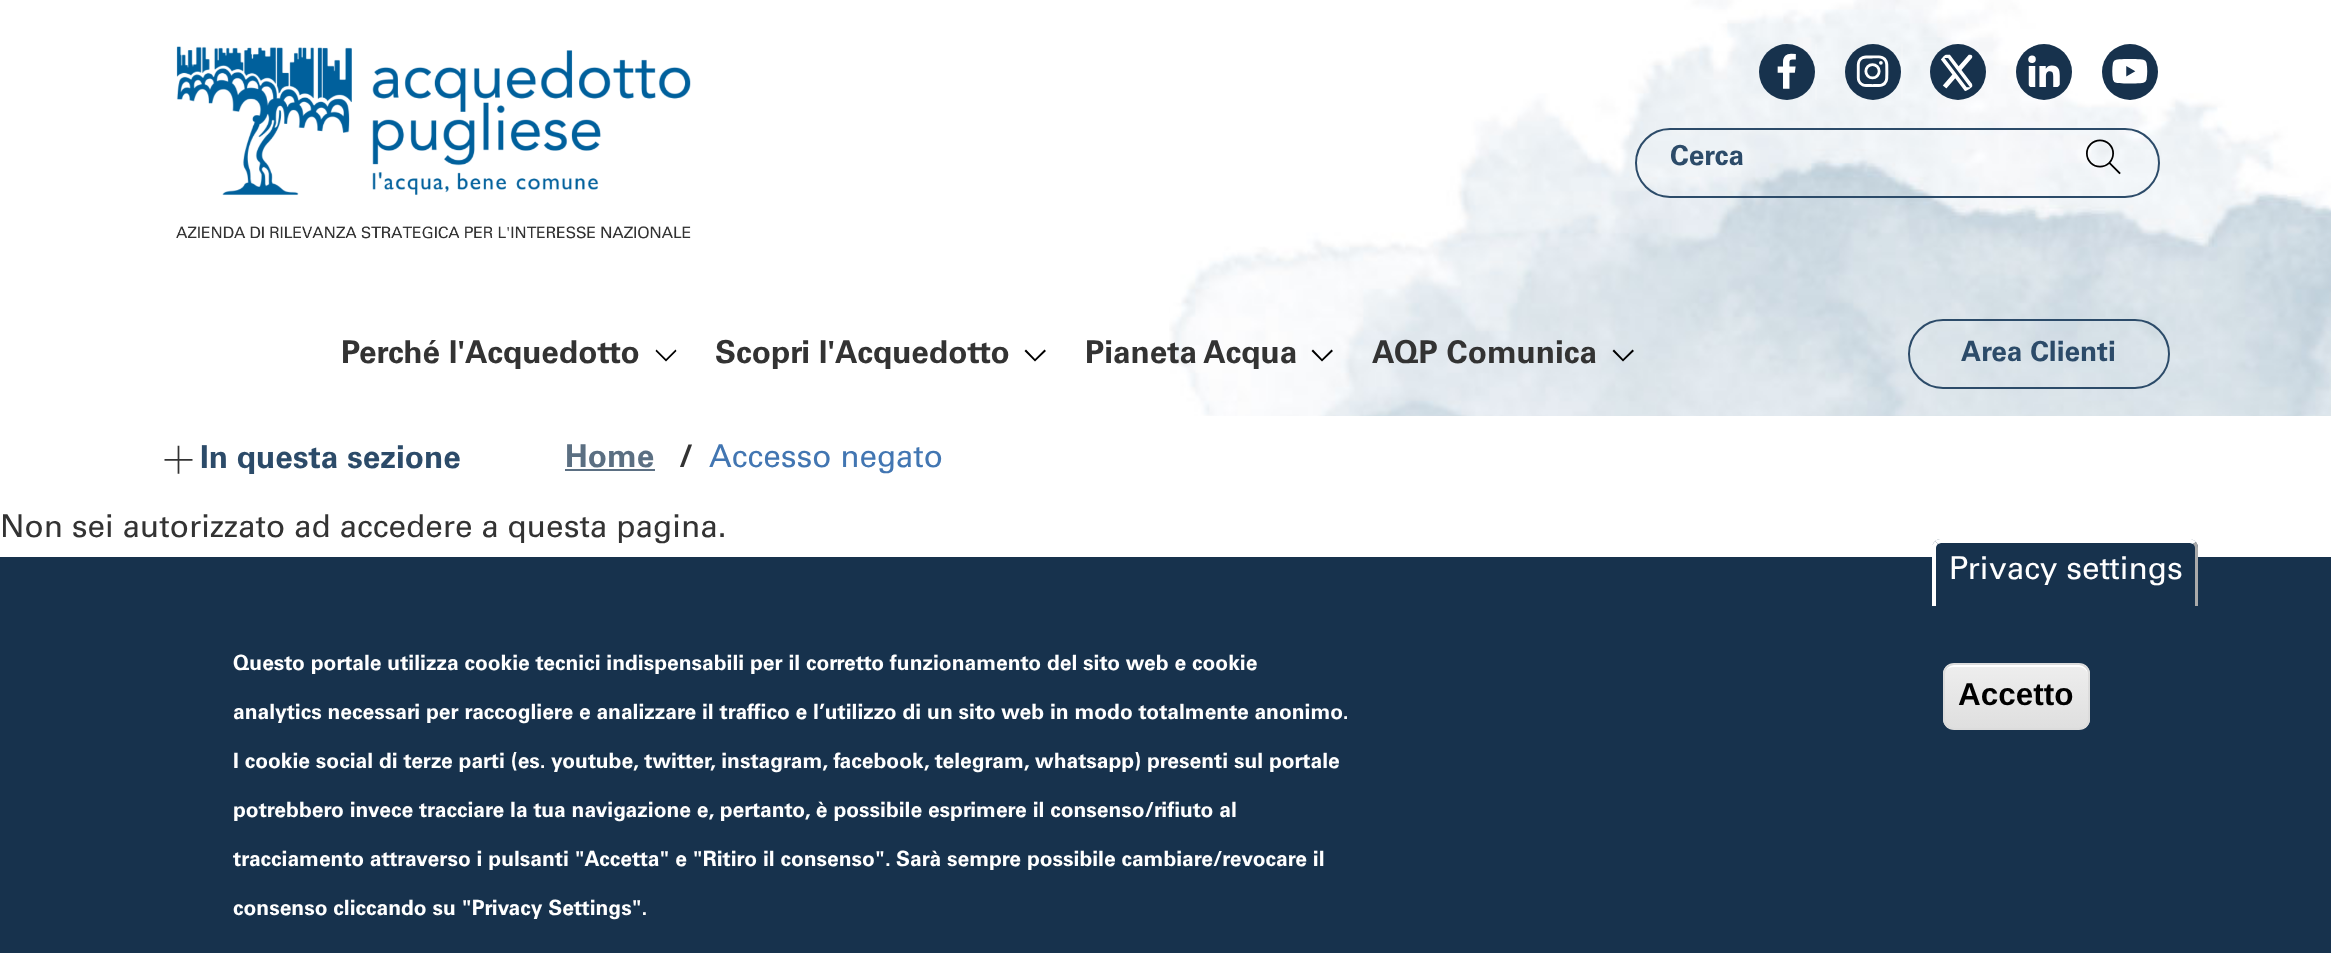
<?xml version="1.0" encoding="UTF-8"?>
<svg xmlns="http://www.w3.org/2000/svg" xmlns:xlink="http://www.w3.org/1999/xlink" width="2331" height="953">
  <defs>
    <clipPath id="clip1"><rect x="1943" y="663" width="147" height="67" rx="11" /></clipPath>
    <linearGradient id="g1" gradientUnits="userSpaceOnUse" x1="2016" y1="665" x2="2016" y2="728"><stop offset="0.05" stop-color="#ededed" /><stop offset="1" stop-color="#dfdfdf" /></linearGradient>
  </defs>
  <rect width="100%" height="100%" fill="#ffffff" />
  <image x="1169" y="0" width="1162" height="416" xlink:href="image1.png" />
  <image x="176" y="46" width="515" height="193" xlink:href="image2.png" />
  <rect x="1815" y="44" width="2" height="56" fill="#ffffff" fill-opacity="0.2" />
  <circle cx="1787" cy="72" r="28" fill="#17324d" />
  <image x="1777" y="53" width="19" height="36" xlink:href="image3.png" />
  <rect x="1901" y="44" width="2" height="56" fill="#ffffff" fill-opacity="0.2" />
  <circle cx="1873" cy="72" r="28" fill="#17324d" />
  <image x="1856" y="55" width="33" height="32" xlink:href="image4.png" />
  <circle cx="1958" cy="72" r="28" fill="#17324d" />
  <image x="1941" y="54" width="32" height="37" xlink:href="image5.png" />
  <circle cx="2044" cy="72" r="28" fill="#17324d" />
  <image x="2028" y="55" width="32" height="32" xlink:href="image6.png" />
  <circle cx="2130" cy="72" r="28" fill="#17324d" />
  <image x="2112" y="59" width="36" height="25" xlink:href="image7.png" />
  <rect x="1636" y="129" width="523" height="68" rx="34" fill="none" stroke="#2c4b69" stroke-width="2" />
  <image x="2086" y="139" width="35" height="36" xlink:href="image8.png" />
  <path d="M 666 361.5 l -10.5 -10.5 l 1 -1.5 l 9.5 9.5 l 9.5 -9.5 l 1 1.5 z" fill="#000000" />
  <path d="M 1035 361.5 l -10.5 -10.5 l 1.5 -1.5 l 9 9.5 l 9.5 -9.5 l 1.5 1.5 z" fill="#000000" />
  <path d="M 1322 361.5 l -10.5 -10.5 l 1.5 -1.5 l 9 9.5 l 9.5 -9.5 l 1.5 1.5 z" fill="#000000" />
  <path d="M 1623 361.5 l -10.5 -10.5 l 1.5 -1.5 l 9 9.5 l 9.5 -9.5 l 1.5 1.5 z" fill="#000000" />
  <rect x="1909" y="320" width="260" height="68" rx="34" fill="none" stroke="#2c4b69" stroke-width="2" />
  <image x="164" y="445" width="29" height="29" xlink:href="image9.png" />
  <rect x="565" y="469" width="90" height="2" fill="#5b6f82" />
  <rect y="557" width="2331" height="396" fill="#17324d" />
  <path d="M 1941 539 h 248 c 5 0 9 4 9 9 v 58 h -266 v -58 c 0 -5 4 -9 9 -9 z" fill="#17324d" />
  <path d="M 1941 543 l -3 1 l -3 -3 c 1 -1 3 -2 5 -2 h 251 c 1 0 3 1 5 3 l -3 2 l -3 -1 z" fill="#ffffff" />
  <path d="M 2195 606 v -58 c 0 -2 -1 -3 -2 -4 l 3 -2 c 1 1 2 4 2 6 v 58 z" fill="#aaaaaa" />
  <path d="M 1932 606 v -61 l 3 -4 l 3 3 c -1 1 -2 2 -2 4 v 58 z" fill="#ffffff" />
  <g clip-path="url(#clip1)">
    <rect x="1943" y="665" width="147" height="63" fill="url(#g1)" />
  </g>
  <path d="M 1953 667 h 126 c 5 0 9 4 9 9 c 0 -16 -19 -11 -30 -11 h -84 c -11 0 -30 -5 -30 11 c 0 -5 4 -9 9 -9 z" fill="#ffffff" />
  <rect x="1944" y="664" width="145" height="65" rx="10" fill="none" stroke="#dcdcdc" stroke-width="2" />
  <text x="1670" y="165" style="font-family: Univers; font-size: 28px; font-weight: bold; fill: #2c4b69">Cerca</text>
  <text x="341" y="363" style="font-family: Univers; font-size: 31.5px; font-weight: bold; fill: #333333">Perché l'Acquedotto</text>
  <text x="715" y="363" style="font-family: Univers; font-size: 31.5px; font-weight: bold; fill: #333333">Scopri l'Acquedotto</text>
  <text x="1085" y="363" style="font-family: Univers; font-size: 31.5px; font-weight: bold; fill: #333333">Pianeta Acqua</text>
  <text x="1372" y="363" style="font-family: Univers; font-size: 31.5px; font-weight: bold; fill: #333333">AQP Comunica</text>
  <text x="1961" y="361" style="font-family: Univers; font-size: 28px; font-weight: bold; fill: #2c4b69">Area Clienti</text>
  <text x="200" y="468" style="font-family: Univers; font-size: 31.5px; font-weight: bold; fill: #2c4b69">In questa sezione</text>
  <text x="565" y="467" style="font-family: Univers; font-size: 31.5px; font-weight: bold; fill: #5b6f82">Home</text>
  <text x="679" y="467" style="font-family: Univers; font-size: 31.5px; font-weight: bold; fill: #333333">/</text>
  <text x="709" y="467" style="font-family: Univers; font-size: 31.5px; fill: #4276b2">Accesso negato</text>
  <text x="0" y="537" style="font-family: Univers; font-size: 31.5px; fill: #333333">Non sei autorizzato ad accedere a questa pagina.</text>
  <text x="1949" y="579" style="font-family: Univers; font-size: 31.5px; fill: #ffffff">Privacy settings</text>
  <text x="233" y="670" style="font-family: Univers; font-size: 21px; font-weight: bold; fill: #ffffff">Questo portale utilizza cookie tecnici indispensabili per il corretto funzionamento del sito web e cookie</text>
  <text x="233" y="719" style="font-family: Univers; font-size: 21px; font-weight: bold; fill: #ffffff">analytics necessari per raccogliere e analizzare il traffico e l’utilizzo di un sito web in modo totalmente anonimo.</text>
  <text x="233" y="768" style="font-family: Univers; font-size: 21px; font-weight: bold; fill: #ffffff">I cookie social di terze parti (es. youtube, twitter, instagram, facebook, telegram, whatsapp) presenti sul portale</text>
  <text x="233" y="817" style="font-family: Univers; font-size: 21px; font-weight: bold; fill: #ffffff">potrebbero invece tracciare la tua navigazione e, pertanto, è possibile esprimere il consenso/rifiuto al</text>
  <text x="233" y="866" style="font-family: Univers; font-size: 21px; font-weight: bold; fill: #ffffff">tracciamento attraverso i pulsanti "Accetta" e "Ritiro il consenso". Sarà sempre possibile cambiare/revocare il</text>
  <text x="233" y="915" style="font-family: Univers; font-size: 21px; font-weight: bold; fill: #ffffff">consenso cliccando su "Privacy Settings".</text>
  <text x="1958" y="705" style="font-family: Liberation Sans; font-size: 31.5px; font-weight: bold; fill: #000000">Accetto</text>
</svg>
